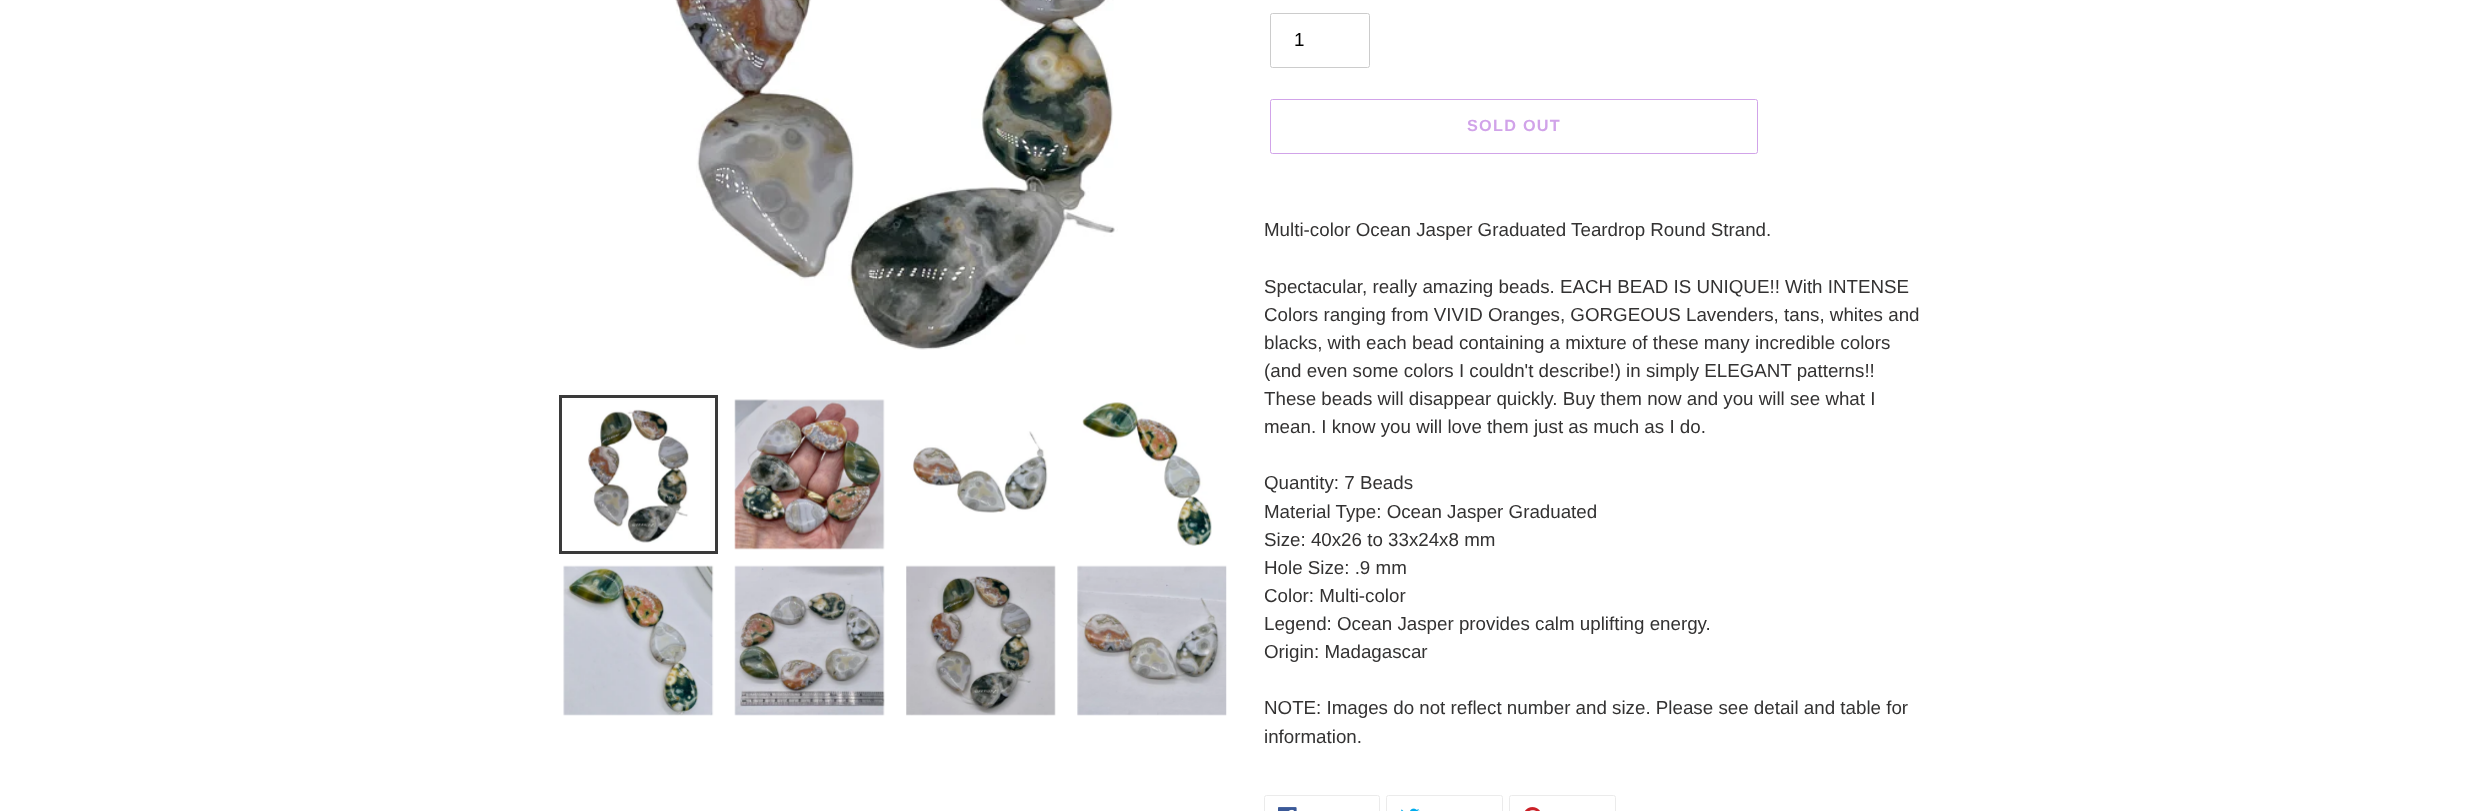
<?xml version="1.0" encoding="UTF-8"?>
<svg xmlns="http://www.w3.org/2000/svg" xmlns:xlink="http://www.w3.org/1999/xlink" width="2490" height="811">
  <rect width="100%" height="100%" fill="#ffffff" />
  <image x="675" y="0" width="443" height="350" xlink:href="image1.png" />
  <rect x="560.5" y="396.5" width="156" height="156" fill="none" stroke="#3a3a3a" stroke-width="3" />
  <image x="587" y="409" width="102" height="134" xlink:href="image2.png" />
  <image x="734" y="399" width="151" height="151" xlink:href="image3.png" />
  <image x="912" y="431" width="136" height="82" xlink:href="image4.png" />
  <image x="1082" y="402" width="130" height="144" xlink:href="image5.png" />
  <image x="563" y="565" width="151" height="151" xlink:href="image6.png" />
  <image x="734" y="565" width="151" height="151" xlink:href="image7.png" />
  <image x="906" y="565" width="150" height="151" xlink:href="image8.png" />
  <image x="1077" y="565" width="150" height="151" xlink:href="image9.png" />
  <rect x="1270.5" y="13.5" width="99" height="54" rx="2" fill="none" stroke="#cccccc" />
  <rect x="1270.5" y="99.5" width="487" height="54" rx="2" fill="none" stroke="#d1a3e9" />
  <rect x="1264.5" y="795.5" width="115" height="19" rx="2" fill="none" stroke="#ebebeb" />
  <image x="1278" y="807" width="19" height="4" xlink:href="image10.png" />
  <rect x="1386.5" y="795.5" width="116" height="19" rx="2" fill="none" stroke="#ebebeb" />
  <image x="1401" y="808" width="19" height="3" xlink:href="image11.png" />
  <rect x="1509.5" y="795.5" width="106" height="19" rx="2" fill="none" stroke="#ebebeb" />
  <image x="1525" y="807" width="15" height="4" xlink:href="image12.png" />
  <text x="1294" y="46" style="font-family: Liberation Sans; font-size: 18.75px; fill: #000000">1</text>
  <text x="1467" y="131" style="font-family: Liberation Sans; font-size: 16.25px; font-weight: bold; letter-spacing: 1.25px; fill: #d1a3e9">SOLD OUT</text>
  <text x="1264" y="236" style="font-family: Liberation Sans; font-size: 18.75px; fill: #333232">Multi-color Ocean Jasper Graduated Teardrop Round Strand.</text>
  <text x="1264" y="293" style="font-family: Liberation Sans; font-size: 18.75px; fill: #333232">Spectacular, really amazing beads. EACH BEAD IS UNIQUE!! With INTENSE</text>
  <text x="1264" y="321" style="font-family: Liberation Sans; font-size: 18.75px; fill: #333232">Colors ranging from VIVID Oranges, GORGEOUS Lavenders, tans, whites and</text>
  <text x="1264" y="349" style="font-family: Liberation Sans; font-size: 18.75px; fill: #333232">blacks, with each bead containing a mixture of these many incredible colors</text>
  <text x="1264" y="377" style="font-family: Liberation Sans; font-size: 18.75px; fill: #333232">(and even some colors I couldn't describe!) in simply ELEGANT patterns!!</text>
  <text x="1264" y="405" style="font-family: Liberation Sans; font-size: 18.75px; fill: #333232">These beads will disappear quickly. Buy them now and you will see what I</text>
  <text x="1264" y="433" style="font-family: Liberation Sans; font-size: 18.75px; fill: #333232">mean. I know you will love them just as much as I do.</text>
  <text x="1264" y="489" style="font-family: Liberation Sans; font-size: 18.75px; fill: #333232">Quantity: 7 Beads</text>
  <text x="1264" y="518" style="font-family: Liberation Sans; font-size: 18.75px; fill: #333232">Material Type: Ocean Jasper Graduated</text>
  <text x="1264" y="546" style="font-family: Liberation Sans; font-size: 18.75px; fill: #333232">Size: 40x26 to 33x24x8 mm</text>
  <text x="1264" y="574" style="font-family: Liberation Sans; font-size: 18.75px; fill: #333232">Hole Size: .9 mm</text>
  <text x="1264" y="602" style="font-family: Liberation Sans; font-size: 18.75px; fill: #333232">Color: Multi-color</text>
  <text x="1264" y="630" style="font-family: Liberation Sans; font-size: 18.75px; fill: #333232">Legend: Ocean Jasper provides calm uplifting energy.</text>
  <text x="1264" y="658" style="font-family: Liberation Sans; font-size: 18.75px; fill: #333232">Origin: Madagascar</text>
  <text x="1264" y="714" style="font-family: Liberation Sans; font-size: 18.75px; fill: #333232">NOTE: Images do not reflect number and size. Please see detail and table for</text>
  <text x="1264" y="743" style="font-family: Liberation Sans; font-size: 18.75px; fill: #333232">information.</text>
</svg>
